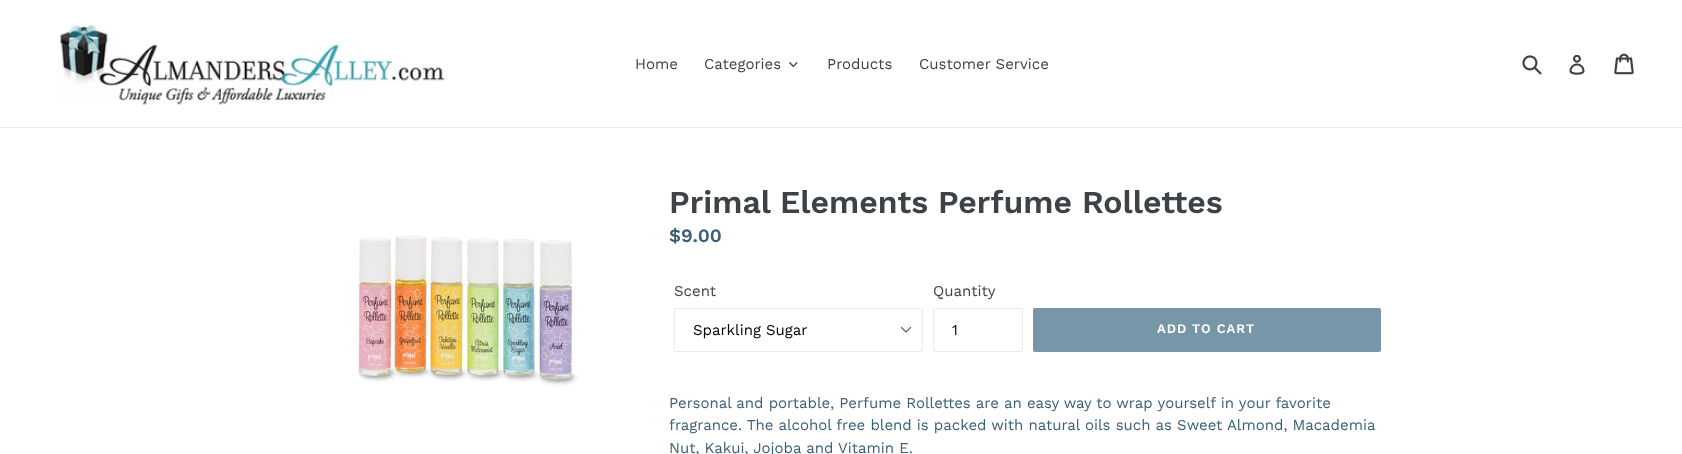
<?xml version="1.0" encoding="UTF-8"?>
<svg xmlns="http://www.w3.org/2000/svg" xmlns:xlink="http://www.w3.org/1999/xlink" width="1682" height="454">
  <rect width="100%" height="100%" fill="#ffffff" />
  <rect y="127" width="1682" height="1" fill="#e8e9eb" />
  <image x="60" y="24" width="387" height="81" xlink:href="image1.png" />
  <path d="M 796.5 62 l 1 1 l -4 4 l -0.5 -1 z" fill="#3d4246" />
  <path d="M 790 62 l 4 4 l -1 1 l -4 -4 z" fill="#3d4246" />
  <image x="1522" y="55" width="20" height="20" xlink:href="image2.png" />
  <image x="1569" y="55" width="16" height="20" xlink:href="image3.png" />
  <image x="1614" y="53" width="20" height="22" xlink:href="image4.png" />
  <image x="357" y="235" width="221" height="152" xlink:href="image5.png" />
  <image x="900" y="326" width="12" height="7" xlink:href="image6.png" />
  <rect x="674.5" y="308.5" width="248" height="43" rx="1.5" fill="none" stroke="#e8e9eb" />
  <rect x="933.5" y="308.5" width="89" height="43" rx="1.5" fill="none" stroke="#e8e9eb" />
  <rect x="1033" y="308" width="348" height="44" rx="2" fill="#7796a8" />
  <text x="635" y="69" style="font-family: Work Sans; font-size: 15px; fill: #3d4246">Home</text>
  <text x="704" y="69" style="font-family: Work Sans; font-size: 15px; fill: #3d4246">Categories</text>
  <text x="827" y="69" style="font-family: Work Sans; font-size: 15px; fill: #3d4246">Products</text>
  <text x="919" y="69" style="font-family: Work Sans; font-size: 15px; fill: #3d4246">Customer Service</text>
  <text x="669" y="213" style="font-family: Work Sans; font-size: 32px; font-weight: 600; fill: #3d4246">Primal Elements Perfume Rollettes</text>
  <text x="669" y="242" style="font-family: Work Sans; font-size: 19px; font-weight: 600; fill: #3b5f74">$9.00</text>
  <text x="674" y="296" style="font-family: Work Sans; font-size: 15px; fill: #3d4246">Scent</text>
  <text x="693" y="335" style="font-family: Work Sans; font-size: 15px; fill: #000000">Sparkling Sugar</text>
  <text x="933" y="296" style="font-family: Work Sans; font-size: 15px; fill: #3d4246">Quantity</text>
  <text x="952" y="335" style="font-family: Work Sans; font-size: 15px; fill: #000000">1</text>
  <text x="1157" y="333" style="font-family: Work Sans; font-size: 13px; font-weight: 600; letter-spacing: 1px; fill: #ffffff">ADD TO CART</text>
  <text x="669" y="408" style="font-family: Work Sans; font-size: 15px; fill: #3b5f74">Personal and portable, Perfume Rollettes are an easy way to wrap yourself in your favorite</text>
  <text x="669" y="430" style="font-family: Work Sans; font-size: 15px; fill: #3b5f74">fragrance. The alcohol free blend is packed with natural oils such as Sweet Almond, Macademia</text>
  <text x="669" y="453" style="font-family: Work Sans; font-size: 15px; fill: #3b5f74">Nut, Kakui, Jojoba and Vitamin E.</text>
</svg>
